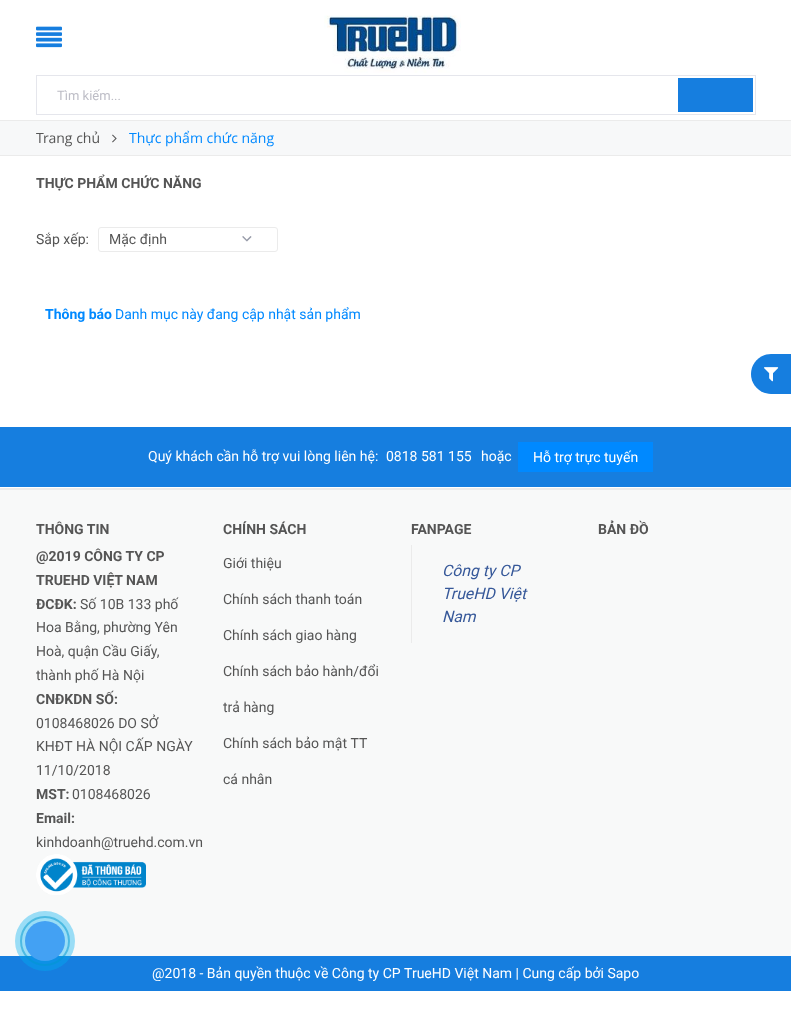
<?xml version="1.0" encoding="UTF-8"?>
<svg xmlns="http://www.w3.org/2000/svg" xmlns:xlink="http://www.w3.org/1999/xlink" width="791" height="1011">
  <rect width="100%" height="100%" fill="#ffffff" />
  <image x="36" y="26" width="26" height="22" xlink:href="image1.png" />
  <image x="324" y="15" width="137" height="58" xlink:href="image2.png" />
  <rect x="36.5" y="75.5" width="719" height="39" fill="none" stroke="#e5e6ec" />
  <rect x="678" y="78" width="75" height="34" fill="#167edf" />
  <rect y="121" width="791" height="34" fill="#f7f8f9" />
  <rect y="120" width="791" height="1" fill="#ebebeb" />
  <rect y="155" width="791" height="1" fill="#ebebeb" />
  <image x="112" y="134" width="5" height="9" xlink:href="image3.png" />
  <image x="242" y="236" width="10" height="6" xlink:href="image4.png" />
  <rect x="98.5" y="227.5" width="179" height="24" rx="2.5" fill="none" stroke="#ebebeb" />
  <path d="M 771 354 h 20 v 40 h -20 c -11 0 -20 -9 -20 -20 c 0 -11 9 -20 20 -20 z" fill="#167edf" />
  <image x="764" y="367" width="15" height="15" xlink:href="image5.png" />
  <rect y="427" width="791" height="60" fill="#167edf" />
  <rect x="518" y="442" width="135" height="30" fill="#0089ff" />
  <rect y="488" width="791" height="2" fill="#ebebeb" />
  <rect y="490" width="791" height="466" fill="#f8f9f9" />
  <image x="36" y="854" width="110" height="41" xlink:href="image6.png" />
  <rect x="411" y="545" width="1" height="98" fill="#ebebeb" />
  <rect y="956" width="791" height="35" fill="#167edf" />
  <circle cx="45" cy="941" r="24" fill="none" stroke="#0089b9" stroke-opacity="0.5" stroke-width="2" />
  <circle cx="45" cy="941" r="30" fill="#00aff2" fill-opacity="0.38" />
  <circle cx="45" cy="941" r="20" fill="#43a1f3" />
  <text x="57" y="100" style="font-family: Roboto; font-size: 13px; fill: #bdbdc6">Tìm kiếm...</text>
  <text x="36" y="143" style="font-family: Open Sans; font-size: 14px; fill: #555555">Trang chủ</text>
  <text x="129" y="143" style="font-family: Open Sans; font-size: 14px; fill: #0089ff">Thực phẩm chức năng</text>
  <text x="36" y="188" style="font-family: Roboto; font-size: 14px; font-weight: bold; fill: #555555">THỰC PHẨM CHỨC NĂNG</text>
  <text x="36" y="244" style="font-family: Roboto; font-size: 14px; fill: #555555">Sắp xếp:</text>
  <text x="109" y="244" style="font-family: Roboto; font-size: 14px; fill: #555555">Mặc định</text>
  <text x="45" y="319" style="font-family: Roboto; font-size: 14px; font-weight: bold; fill: #0089ff">Thông báo</text>
  <text x="115" y="319" style="font-family: Roboto; font-size: 14px; fill: #0089ff">Danh mục này đang cập nhật sản phẩm</text>
  <text x="148" y="461" style="font-family: Roboto; font-size: 14px; fill: #ffffff">Quý khách cần hỗ trợ vui lòng liên hệ:</text>
  <text x="386" y="461" style="font-family: Roboto; font-size: 14px; fill: #ffffff">0818 581 155</text>
  <text x="481" y="461" style="font-family: Roboto; font-size: 14px; fill: #ffffff">hoặc</text>
  <text x="533" y="462" style="font-family: Roboto; font-size: 14px; fill: #ffffff">Hỗ trợ trực tuyến</text>
  <text x="36" y="534" style="font-family: Roboto; font-size: 14px; font-weight: bold; fill: #555555">THÔNG TIN</text>
  <text x="36" y="561" style="font-family: Roboto; font-size: 14px; font-weight: bold; fill: #555555">@2019 CÔNG TY CP</text>
  <text x="36" y="585" style="font-family: Roboto; font-size: 14px; font-weight: bold; fill: #555555">TRUEHD VIỆT NAM</text>
  <text x="36" y="609" style="font-family: Roboto; font-size: 14px; font-weight: bold; fill: #555555">ĐCĐK:</text>
  <text x="80" y="609" style="font-family: Roboto; font-size: 14px; fill: #555555">Số 10B 133 phố</text>
  <text x="36" y="632" style="font-family: Roboto; font-size: 14px; fill: #555555">Hoa Bằng, phường Yên</text>
  <text x="36" y="656" style="font-family: Roboto; font-size: 14px; fill: #555555">Hoà, quận Cầu Giấy,</text>
  <text x="36" y="680" style="font-family: Roboto; font-size: 14px; fill: #555555">thành phố Hà Nội</text>
  <text x="36" y="704" style="font-family: Roboto; font-size: 14px; font-weight: bold; fill: #555555">CNĐKDN SỐ:</text>
  <text x="36" y="728" style="font-family: Roboto; font-size: 14px; fill: #555555">0108468026 DO SỞ</text>
  <text x="36" y="751" style="font-family: Roboto; font-size: 14px; fill: #555555">KHĐT HÀ NỘI CẤP NGÀY</text>
  <text x="36" y="775" style="font-family: Roboto; font-size: 14px; fill: #555555">11/10/2018</text>
  <text x="36" y="799" style="font-family: Roboto; font-size: 14px; font-weight: bold; fill: #555555">MST:</text>
  <text x="72" y="799" style="font-family: Roboto; font-size: 14px; fill: #555555">0108468026</text>
  <text x="36" y="823" style="font-family: Roboto; font-size: 14px; font-weight: bold; fill: #555555">Email:</text>
  <text x="36" y="847" style="font-family: Roboto; font-size: 14px; fill: #555555">kinhdoanh@truehd.com.vn</text>
  <text x="223" y="534" style="font-family: Roboto; font-size: 14px; font-weight: bold; fill: #555555">CHÍNH SÁCH</text>
  <text x="223" y="568" style="font-family: Roboto; font-size: 14px; fill: #555555">Giới thiệu</text>
  <text x="223" y="604" style="font-family: Roboto; font-size: 14px; fill: #555555">Chính sách thanh toán</text>
  <text x="223" y="640" style="font-family: Roboto; font-size: 14px; fill: #555555">Chính sách giao hàng</text>
  <text x="223" y="676" style="font-family: Roboto; font-size: 14px; fill: #555555">Chính sách bảo hành/đổi</text>
  <text x="223" y="712" style="font-family: Roboto; font-size: 14px; fill: #555555">trả hàng</text>
  <text x="223" y="748" style="font-family: Roboto; font-size: 14px; fill: #555555">Chính sách bảo mật TT</text>
  <text x="223" y="784" style="font-family: Roboto; font-size: 14px; fill: #555555">cá nhân</text>
  <text x="411" y="534" style="font-family: Roboto; font-size: 14px; font-weight: bold; fill: #555555">FANPAGE</text>
  <text x="442" y="576" style="font-family: Roboto; font-size: 15.75px; font-style: italic; fill: #365899">Công ty CP</text>
  <text x="442" y="599" style="font-family: Roboto; font-size: 15.75px; font-style: italic; fill: #365899">TrueHD Việt</text>
  <text x="442" y="622" style="font-family: Roboto; font-size: 15.75px; font-style: italic; fill: #365899">Nam</text>
  <text x="598" y="534" style="font-family: Roboto; font-size: 14px; font-weight: bold; fill: #555555">BẢN ĐỒ</text>
  <text x="152" y="978" style="font-family: Roboto; font-size: 14px; fill: #ffffff">@2018 - Bản quyền thuộc về Công ty CP TrueHD Việt Nam | Cung cấp bởi Sapo</text>
</svg>
